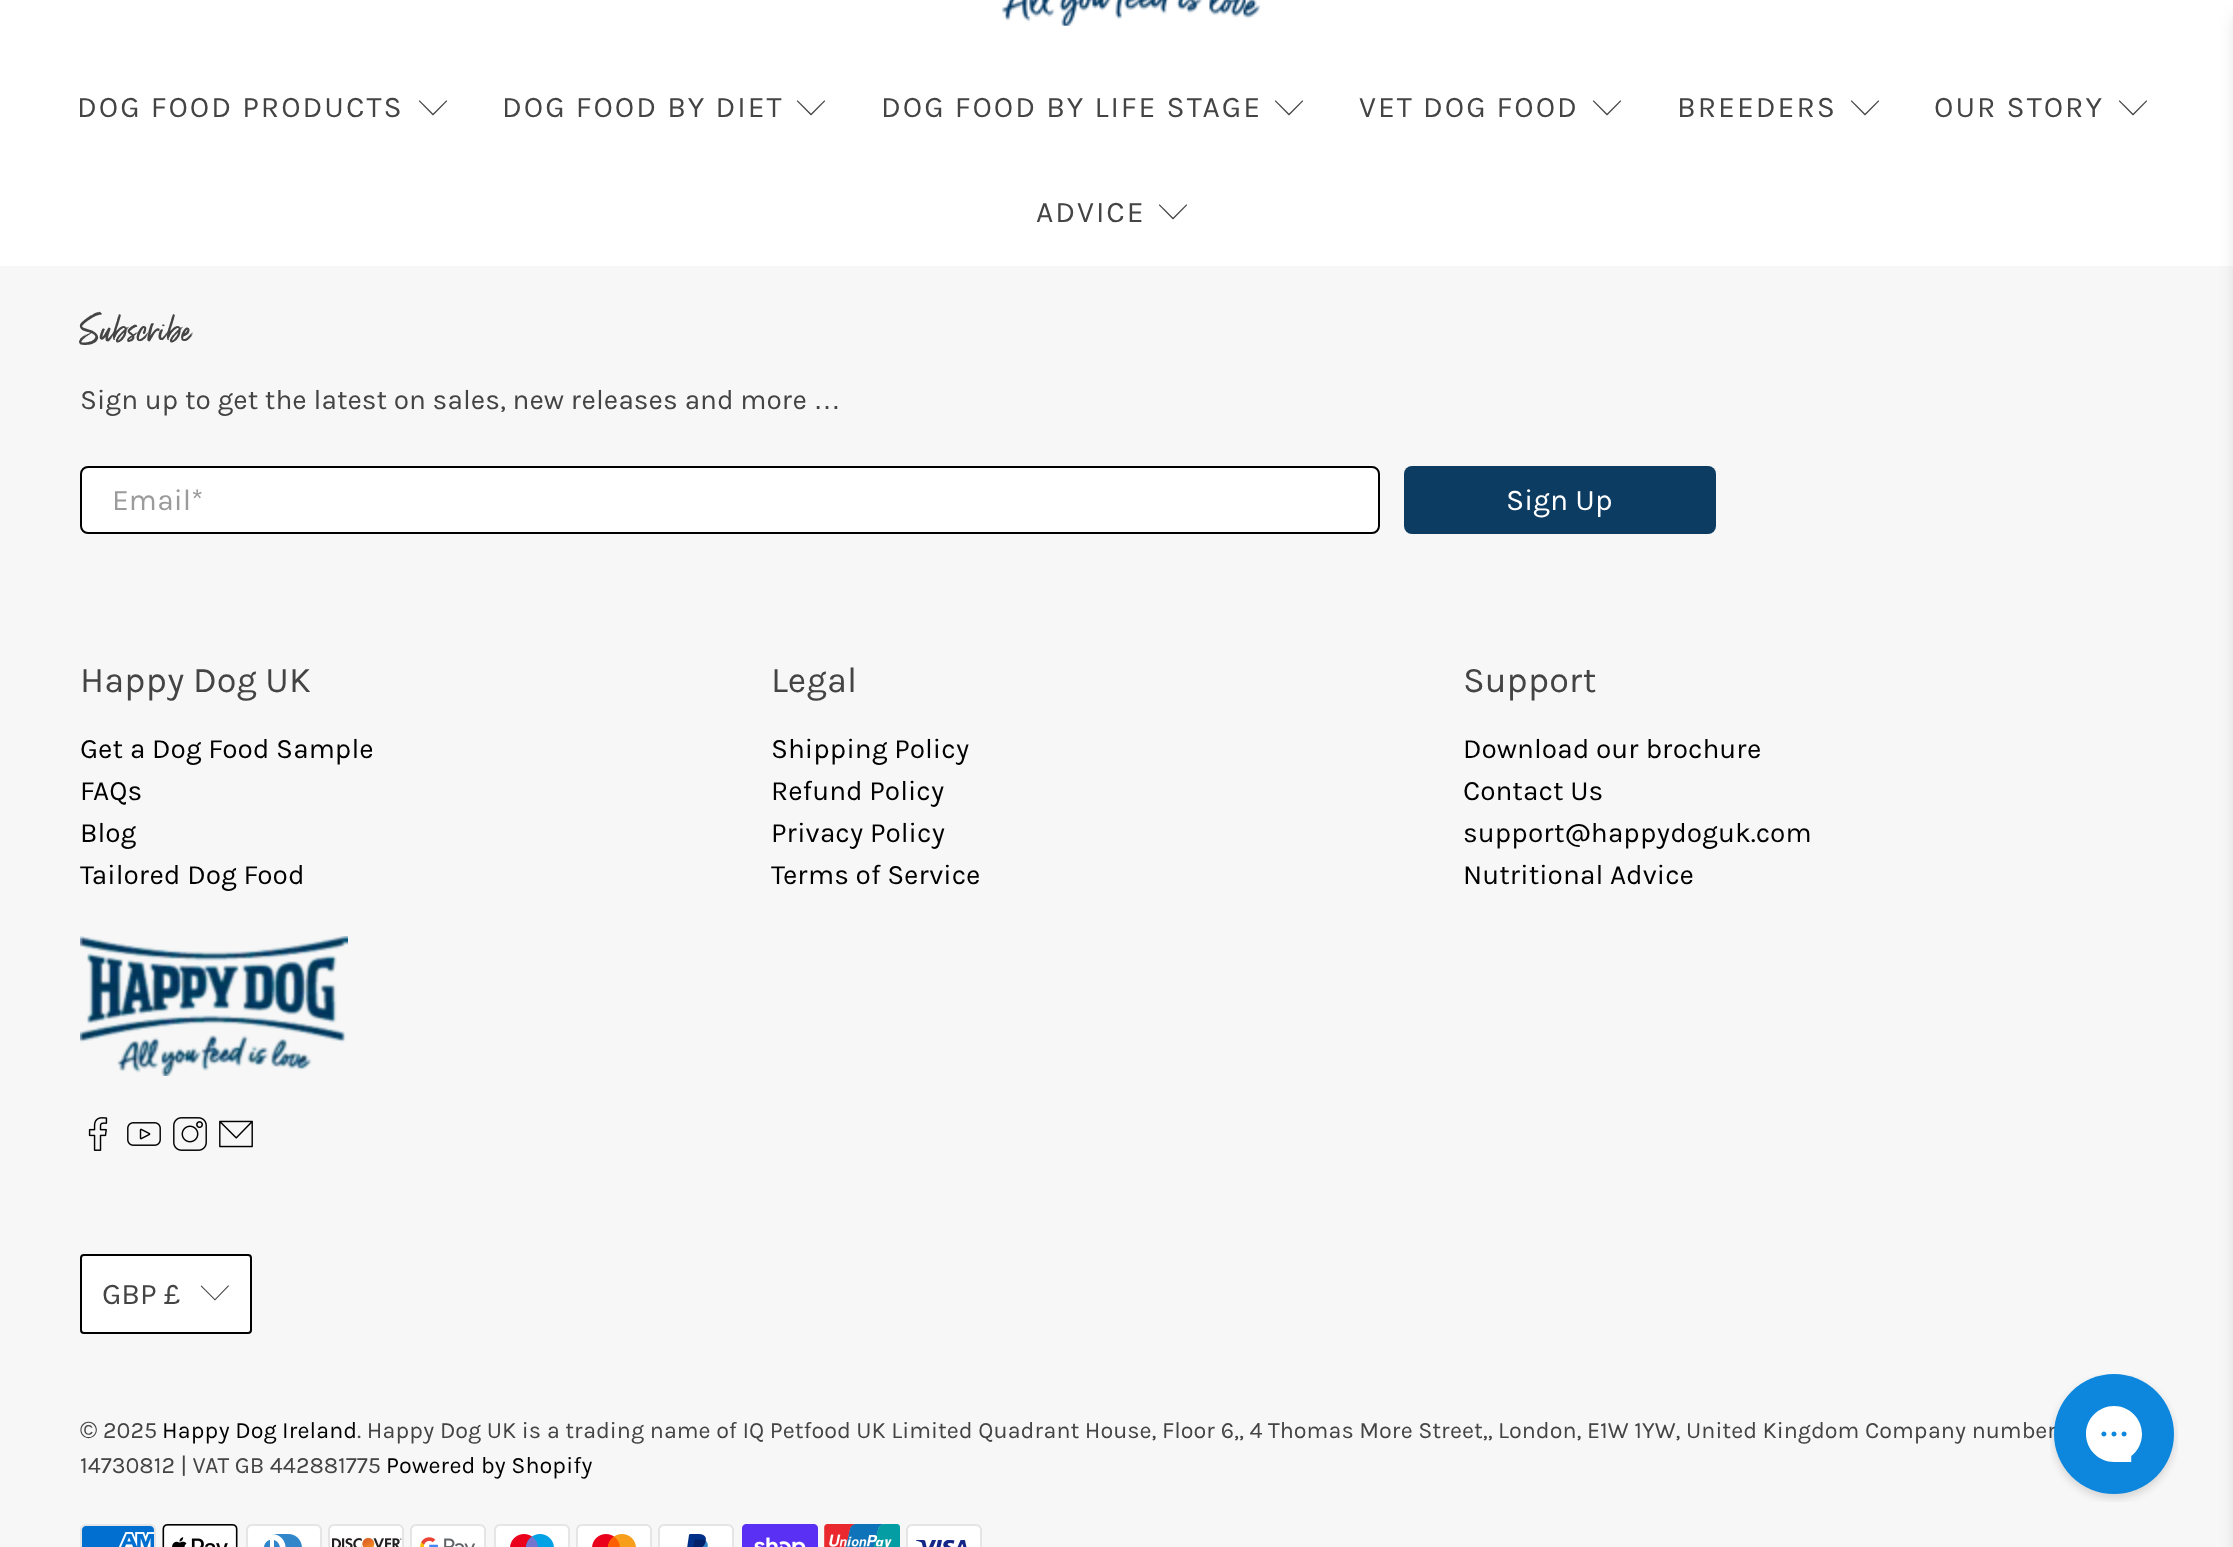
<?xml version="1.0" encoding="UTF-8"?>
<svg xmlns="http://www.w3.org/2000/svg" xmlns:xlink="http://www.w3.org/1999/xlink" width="2233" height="1547">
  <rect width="100%" height="100%" fill="#ffffff" />
  <image x="1002" y="0" width="259" height="26" xlink:href="image1.png" />
  <image x="418" y="100" width="29" height="16" xlink:href="image2.png" />
  <image x="796" y="100" width="29" height="16" xlink:href="image2.png" />
  <image x="1274" y="100" width="29" height="16" xlink:href="image2.png" />
  <image x="1592" y="100" width="29" height="16" xlink:href="image2.png" />
  <image x="1850" y="100" width="29" height="16" xlink:href="image2.png" />
  <image x="2118" y="100" width="29" height="16" xlink:href="image2.png" />
  <image x="1158" y="204" width="29" height="16" xlink:href="image2.png" />
  <rect y="266" width="2233" height="1281" fill="#f7f7f7" />
  <rect x="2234" y="16" width="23" height="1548" fill="#0a0a0a" fill-opacity="0.1" filter="blur(8px)" />
  <rect x="81" y="467" width="1298" height="66" rx="7" fill="#ffffff" stroke="#000000" stroke-width="2" />
  <rect x="1404" y="466" width="312" height="68" rx="8" fill="#0d3c63" />
  <image x="80" y="936" width="268" height="140" xlink:href="image3.png" />
  <image x="88" y="1117" width="20" height="34" xlink:href="image4.png" />
  <image x="127" y="1122" width="34" height="24" xlink:href="image5.png" />
  <image x="173" y="1117" width="34" height="34" xlink:href="image6.png" />
  <image x="219" y="1120" width="34" height="28" xlink:href="image7.png" />
  <rect x="81" y="1255" width="170" height="78" rx="3" fill="#ffffff" stroke="#000000" stroke-width="2" />
  <path d="M 229 1285.5 h -1 l -13 13.5 l -13.5 -13.5 c -0.5 0 -1 0.5 -0.5 1 l 14 14 l 14 -14.5 z" fill="#444444" />
  <image x="80" y="1524" width="76" height="23" xlink:href="image8.png" />
  <image x="162" y="1524" width="76" height="23" xlink:href="image9.png" />
  <image x="246" y="1524" width="76" height="23" xlink:href="image10.png" />
  <image x="328" y="1524" width="76" height="23" xlink:href="image11.png" />
  <image x="410" y="1524" width="76" height="23" xlink:href="image12.png" />
  <image x="494" y="1524" width="76" height="23" xlink:href="image13.png" />
  <image x="576" y="1524" width="76" height="23" xlink:href="image14.png" />
  <image x="658" y="1524" width="76" height="23" xlink:href="image15.png" />
  <image x="742" y="1524" width="76" height="23" xlink:href="image16.png" />
  <image x="824" y="1524" width="76" height="23" xlink:href="image17.png" />
  <image x="906" y="1524" width="76" height="23" xlink:href="image18.png" />
  <text x="77" y="117" style="font-family: Karla; font-size: 30px; letter-spacing: 2px; fill: #444444">DOG FOOD PRODUCTS</text>
  <text x="502" y="117" style="font-family: Karla; font-size: 30px; letter-spacing: 2px; fill: #444444">DOG FOOD BY DIET</text>
  <text x="881" y="117" style="font-family: Karla; font-size: 30px; letter-spacing: 2px; fill: #444444">DOG FOOD BY LIFE STAGE</text>
  <text x="1359" y="117" style="font-family: Karla; font-size: 30px; letter-spacing: 2px; fill: #444444">VET DOG FOOD</text>
  <text x="1677" y="117" style="font-family: Karla; font-size: 30px; letter-spacing: 2px; fill: #444444">BREEDERS</text>
  <text x="1934" y="117" style="font-family: Karla; font-size: 30px; letter-spacing: 2px; fill: #444444">OUR STORY</text>
  <text x="1036" y="222" style="font-family: Karla; font-size: 30px; letter-spacing: 2px; fill: #444444">ADVICE</text>
  <text x="80" y="341" style="font-family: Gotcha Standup; font-size: 36px; fill: #444444">Subscribe</text>
  <text x="80" y="409" style="font-family: Karla; font-size: 28px; fill: #444444">Sign up to get the latest on sales, new releases and more</text>
  <text x="813" y="409" style="font-family: Liberation Sans; font-size: 28px; fill: #444444">…</text>
  <text x="112" y="510" style="font-family: Karla; font-size: 30px; fill: #9b9b9b">Email*</text>
  <text x="1506" y="510" style="font-family: Karla; font-size: 30px; fill: #ffffff">Sign Up</text>
  <text x="80" y="692" style="font-family: Karla; font-size: 36px; fill: #444444">Happy Dog UK</text>
  <text x="80" y="758" style="font-family: Karla; font-size: 28px; fill: #000000">Get a Dog Food Sample</text>
  <text x="80" y="800" style="font-family: Karla; font-size: 28px; fill: #000000">FAQs</text>
  <text x="80" y="842" style="font-family: Karla; font-size: 28px; fill: #000000">Blog</text>
  <text x="80" y="884" style="font-family: Karla; font-size: 28px; fill: #000000">Tailored Dog Food</text>
  <text x="771" y="692" style="font-family: Karla; font-size: 36px; fill: #444444">Legal</text>
  <text x="771" y="758" style="font-family: Karla; font-size: 28px; fill: #000000">Shipping Policy</text>
  <text x="771" y="800" style="font-family: Karla; font-size: 28px; fill: #000000">Refund Policy</text>
  <text x="771" y="842" style="font-family: Karla; font-size: 28px; fill: #000000">Privacy Policy</text>
  <text x="771" y="884" style="font-family: Karla; font-size: 28px; fill: #000000">Terms of Service</text>
  <text x="1463" y="692" style="font-family: Karla; font-size: 36px; fill: #444444">Support</text>
  <text x="1463" y="758" style="font-family: Karla; font-size: 28px; fill: #000000">Download our brochure</text>
  <text x="1463" y="800" style="font-family: Karla; font-size: 28px; fill: #000000">Contact Us</text>
  <text x="1463" y="842" style="font-family: Karla; font-size: 28px; fill: #000000">support@happydoguk.com</text>
  <text x="1463" y="884" style="font-family: Karla; font-size: 28px; fill: #000000">Nutritional Advice</text>
  <text x="102" y="1304" style="font-family: Karla; font-size: 30px; fill: #444444">GBP £</text>
  <text x="80" y="1438" style="font-family: Liberation Sans; font-size: 23.33px; fill: #444444">©</text>
  <text x="103" y="1438" style="font-family: Karla; font-size: 23.33px; fill: #444444">2025</text>
  <text x="162" y="1438" style="font-family: Karla; font-size: 23.33px; fill: #000000">Happy Dog Ireland</text>
  <text x="357" y="1438" style="font-family: Karla; font-size: 23.33px; fill: #444444">. Happy Dog UK is a trading name of IQ Petfood UK Limited Quadrant House, Floor 6,, 4 Thomas More Street,, London, E1W 1YW, United Kingdom Company number</text>
  <text x="80" y="1473" style="font-family: Karla; font-size: 23.33px; fill: #444444">14730812 | VAT GB 442881775</text>
  <text x="386" y="1473" style="font-family: Karla; font-size: 23.33px; fill: #000000">Powered by Shopify</text>
  <image x="2050" y="1374" width="128" height="128" xlink:href="image19.png" />
</svg>
